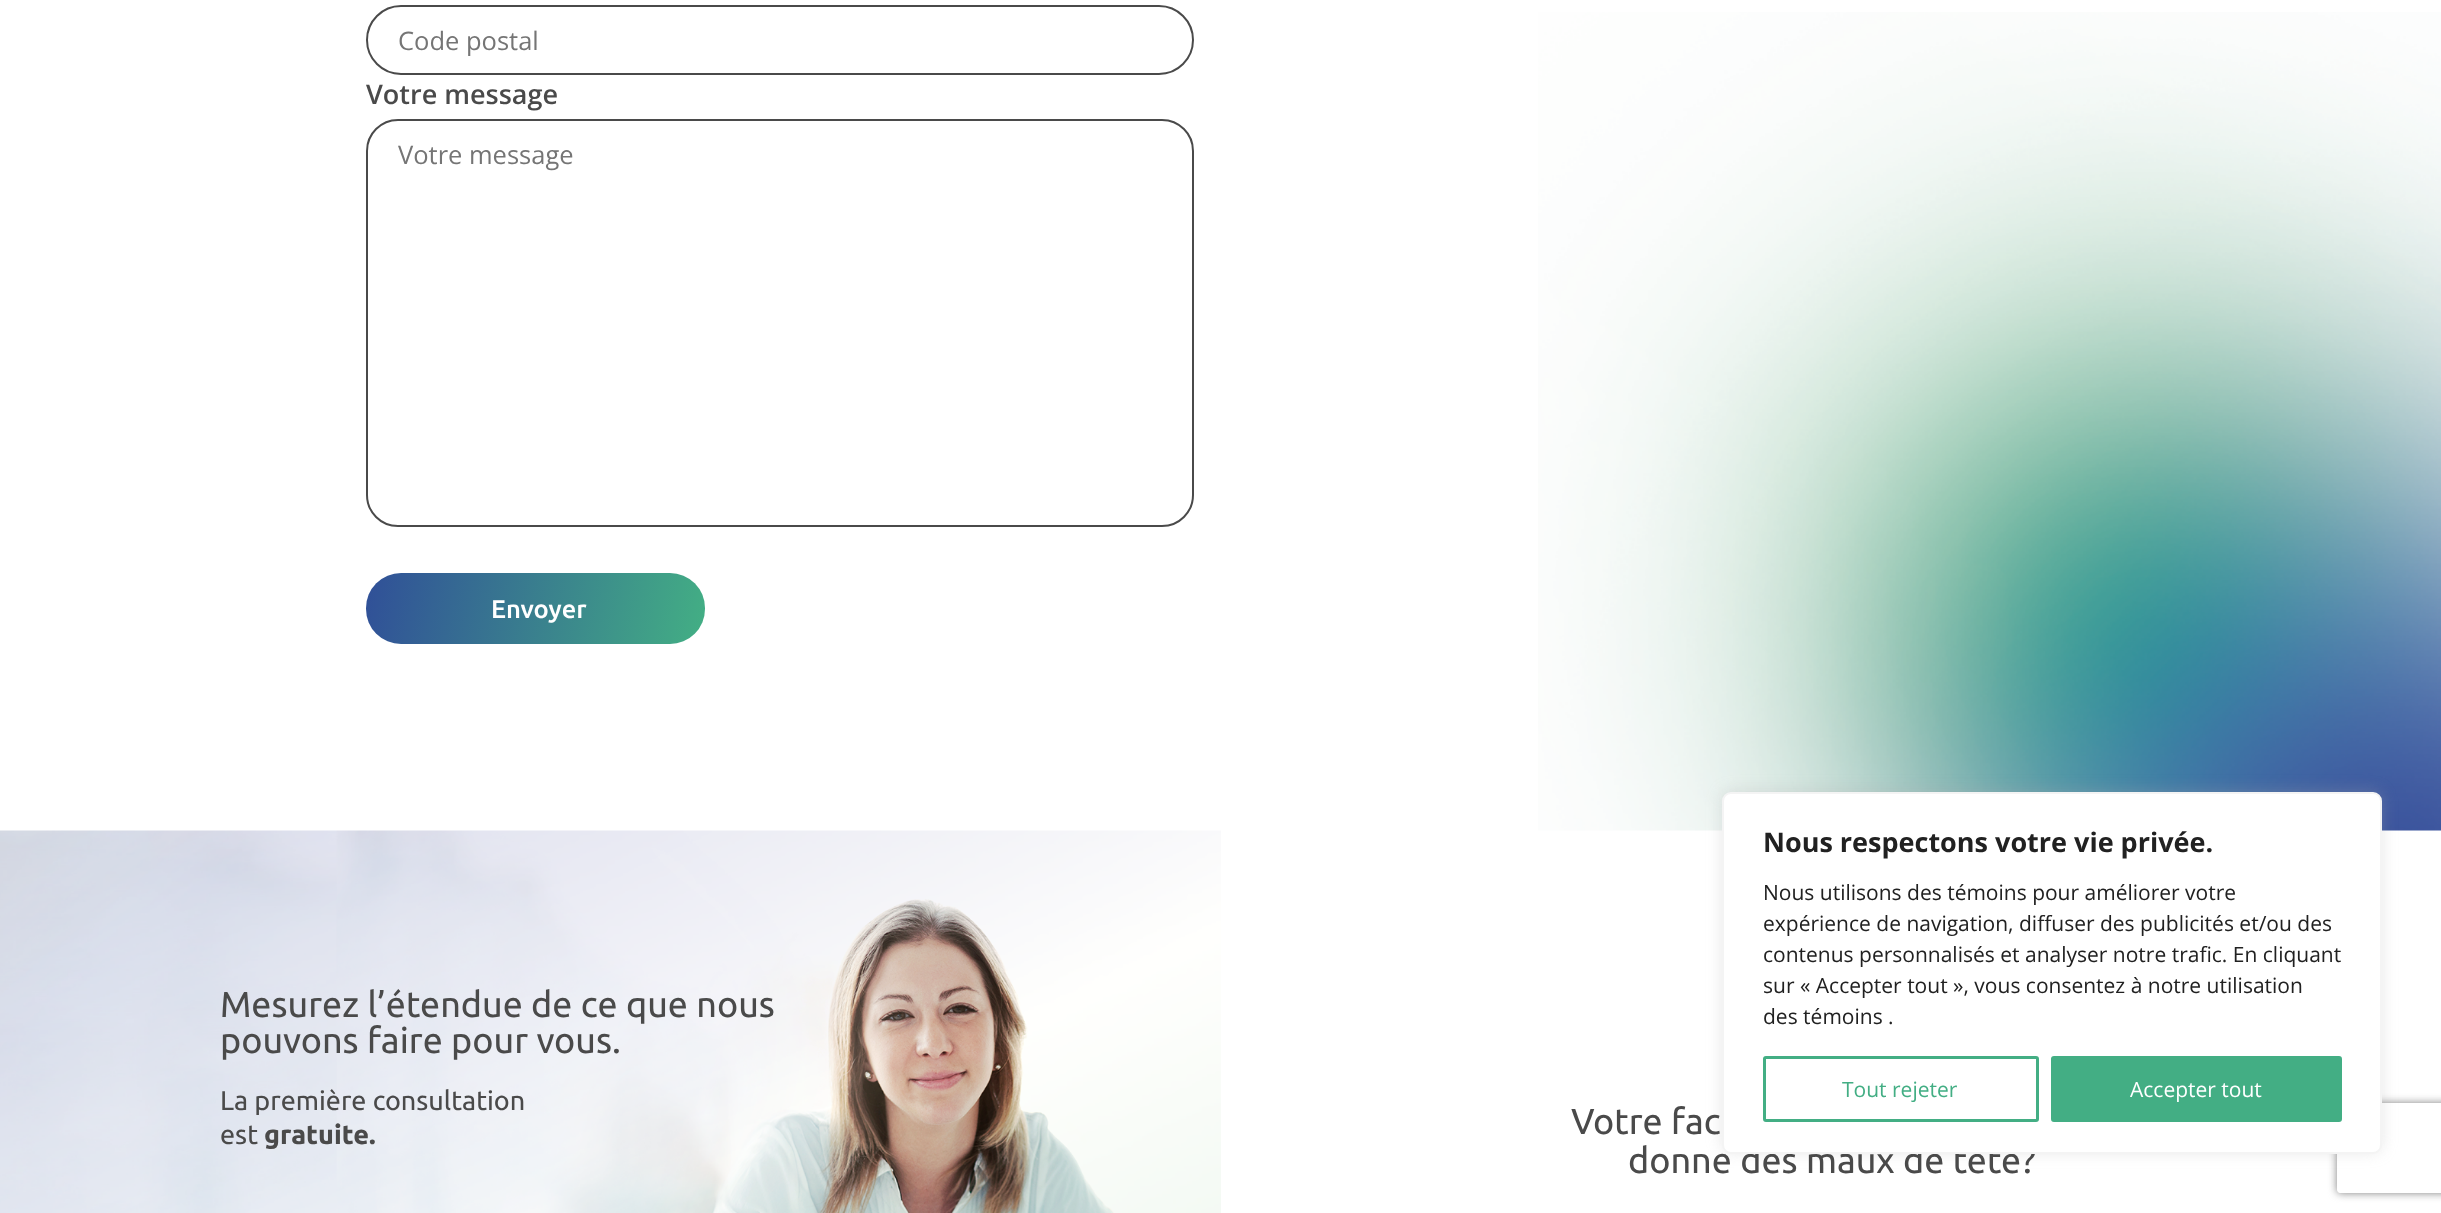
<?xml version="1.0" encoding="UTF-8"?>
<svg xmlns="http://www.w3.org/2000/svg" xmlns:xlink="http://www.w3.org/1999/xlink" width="2441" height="1213">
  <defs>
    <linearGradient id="g1" gradientUnits="userSpaceOnUse" x1="705" y1="644" x2="366" y2="572"><stop offset="0" stop-color="#43af84" /><stop offset="1" stop-color="#304f98" /></linearGradient>
    <clipPath id="clip1"><path d="M 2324 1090 h 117 v 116 h -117 z m 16 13 h 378 c 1.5 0 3 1.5 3 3 v 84 c 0 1.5 -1.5 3 -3 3 h -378 c -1.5 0 -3 -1.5 -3 -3 v -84 c 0 -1.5 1.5 -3 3 -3 z" clip-rule="evenodd" /></clipPath>
  </defs>
  <rect width="100%" height="100%" fill="#ffffff" />
  <image x="1538" y="12" width="903" height="819" xlink:href="image1.png" />
  <rect x="367" y="6" width="826" height="68" rx="34" fill="none" stroke="#4a4a4a" stroke-width="2" />
  <rect x="367" y="120" width="826" height="406" rx="31" fill="none" stroke="#4a4a4a" stroke-width="2" />
  <rect x="366" y="573" width="339" height="71" rx="35" fill="url(#g1)" />
  <image x="0" y="830" width="1221" height="383" xlink:href="image2.png" />
  <rect x="1722" y="791" width="660" height="361" rx="9" fill="#acabab" fill-opacity="0.3" filter="blur(7.5px)" />
  <g clip-path="url(#clip1)">
    <rect x="2337" y="1103" width="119" height="90" rx="3" fill="#808080" filter="blur(4px)" />
  </g>
  <text x="398" y="50" style="font-family: Open Sans; font-size: 25.5px; fill: #757575">Code postal</text>
  <text x="366" y="104" style="font-family: Open Sans; font-size: 27px; font-weight: 600; fill: #4a4a4a">Votre message</text>
  <text x="398" y="164" style="font-family: Open Sans; font-size: 25.5px; fill: #757575">Votre message</text>
  <text x="491" y="618" style="font-family: Ubuntu; font-size: 25.5px; font-weight: 500; fill: #ffffff">Envoyer</text>
  <text x="220" y="1017" style="font-family: Ubuntu; font-size: 36px; fill: #4a4a4a">Mesurez l’étendue de ce que nous</text>
  <text x="220" y="1053" style="font-family: Ubuntu; font-size: 36px; fill: #4a4a4a">pouvons faire pour vous.</text>
  <text x="220" y="1110" style="font-family: Ubuntu; font-size: 27px; fill: #4a4a4a">La première consultation</text>
  <text x="220" y="1144" style="font-family: Ubuntu; font-size: 27px; fill: #4a4a4a">est</text>
  <text x="264" y="1144" style="font-family: Ubuntu; font-size: 27px; font-weight: bold; fill: #4a4a4a">gratuite.</text>
  <text x="1571" y="1134" style="font-family: Ubuntu; font-size: 36px; fill: #4a4a4a">Votre fac</text>
  <text x="1628" y="1173" style="font-family: Ubuntu; font-size: 36px; fill: #4a4a4a">donne des maux de tête?</text>
  <rect x="1723" y="793" width="658" height="360" rx="8" fill="#ffffff" stroke="#f4f4f4" stroke-width="2" />
  <text x="1763" y="852" style="font-family: Open Sans; font-size: 27px; font-weight: bold; fill: #212121">Nous respectons votre vie privée.</text>
  <text x="1763" y="900" style="font-family: Open Sans; font-size: 21px; fill: #212121">Nous utilisons des témoins pour améliorer votre</text>
  <text x="1763" y="931" style="font-family: Open Sans; font-size: 21px; fill: #212121">expérience de navigation, diffuser des publicités et/ou des</text>
  <text x="1763" y="962" style="font-family: Open Sans; font-size: 21px; fill: #212121">contenus personnalisés et analyser notre trafic. En cliquant</text>
  <text x="1763" y="993" style="font-family: Open Sans; font-size: 21px; fill: #212121">sur « Accepter tout », vous consentez à notre utilisation</text>
  <text x="1763" y="1024" style="font-family: Open Sans; font-size: 21px; fill: #212121">des témoins .</text>
  <rect x="1764.5" y="1057.5" width="273" height="63" rx="1.5" fill="none" stroke="#43ae84" stroke-width="3" />
  <text x="1842" y="1097" style="font-family: Open Sans; font-size: 21px; fill: #43ae84">Tout rejeter</text>
  <rect x="2052.5" y="1057.5" width="288" height="63" rx="1.5" fill="#43ae84" stroke="#43ae84" stroke-width="3" />
  <text x="2130" y="1097" style="font-family: Open Sans; font-size: 21px; fill: #ffffff">Accepter tout</text>
</svg>
